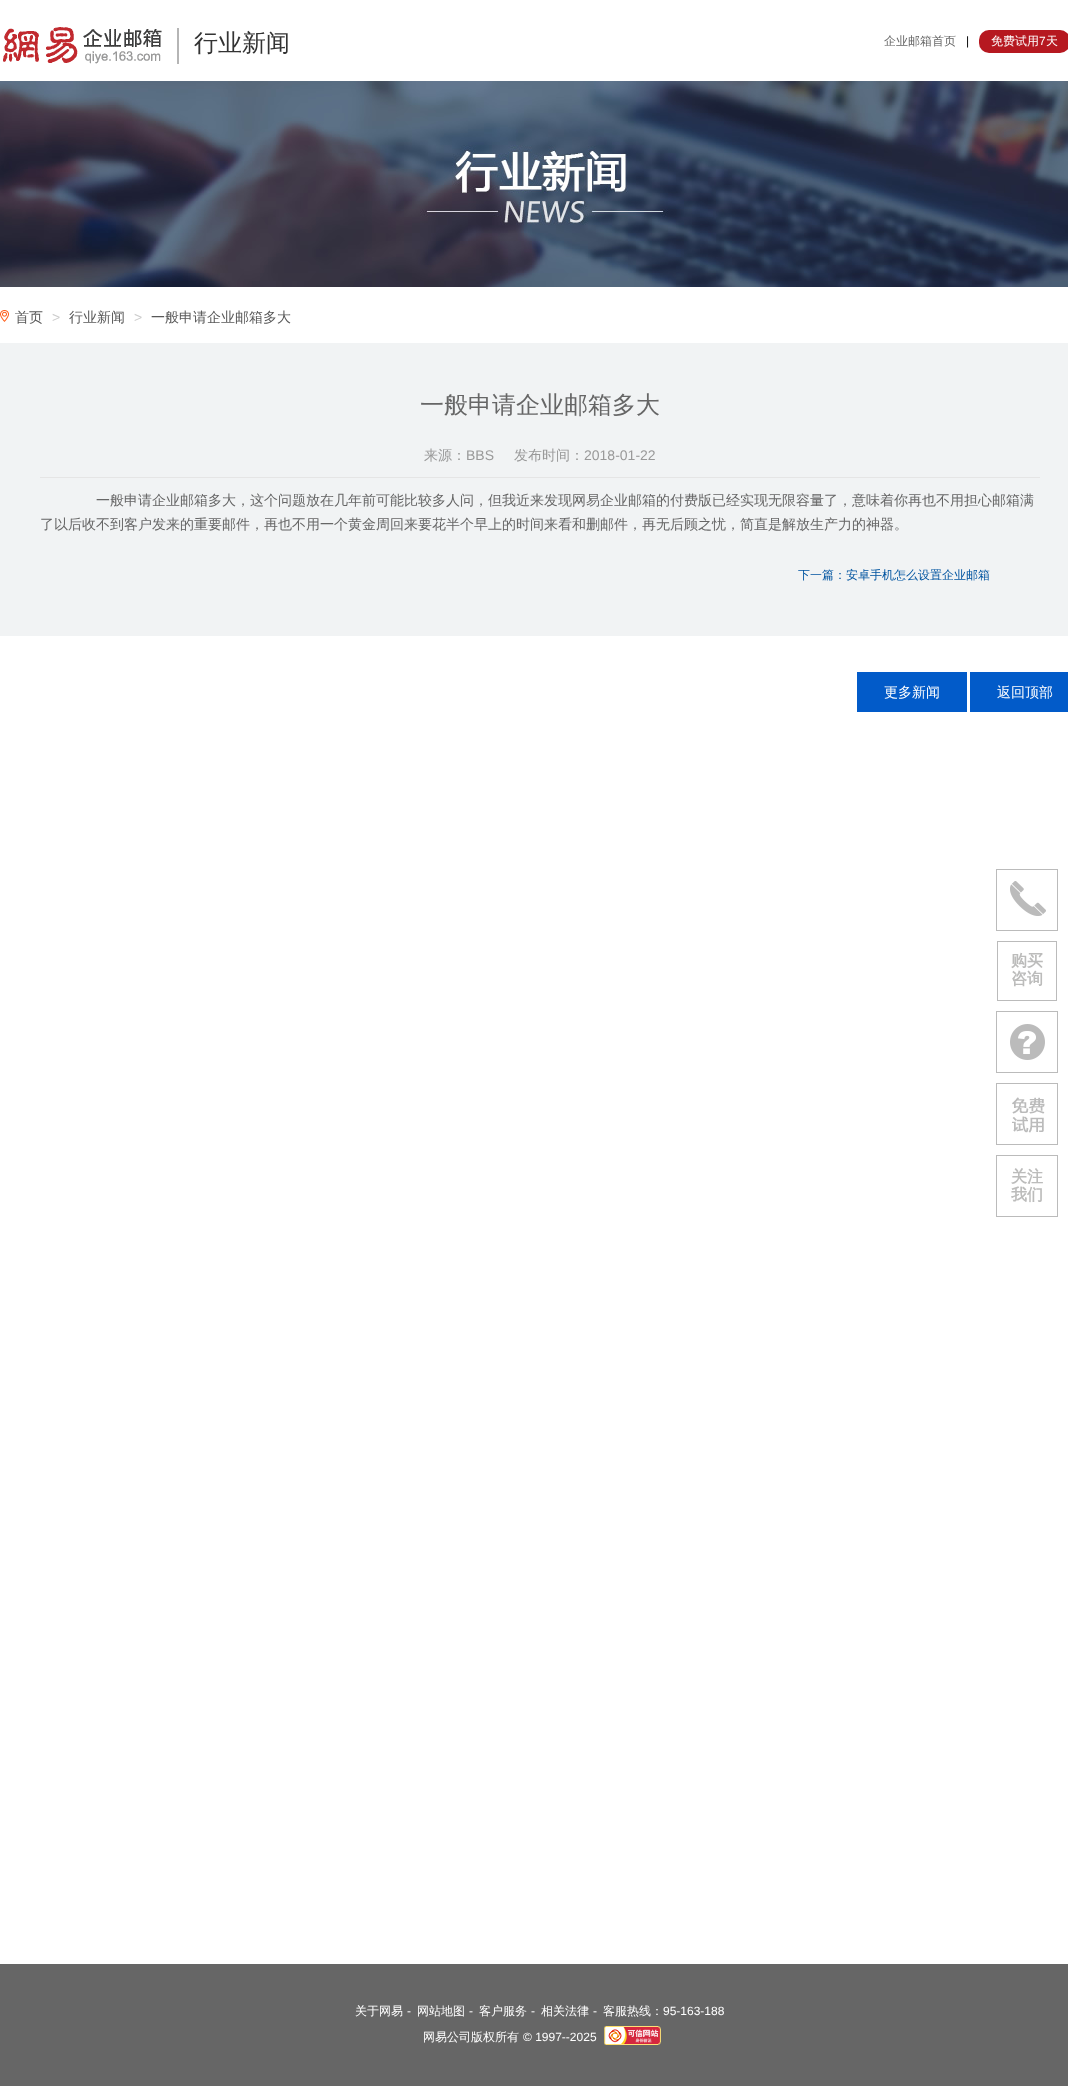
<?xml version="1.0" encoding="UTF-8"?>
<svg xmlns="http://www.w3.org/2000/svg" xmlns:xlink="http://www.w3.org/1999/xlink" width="1068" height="2086">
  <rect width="100%" height="100%" fill="#ffffff" />
  <image x="3" y="27" width="176" height="37" xlink:href="image1.png" />
  <rect x="979" y="30" width="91" height="23" rx="10" fill="#b61820" />
  <image x="0" y="81" width="1068" height="206" xlink:href="image2.png" />
  <image x="0" y="310" width="9" height="12" xlink:href="image3.png" />
  <rect y="343" width="1068" height="293" fill="#f1f3f4" />
  <rect x="40" y="477" width="1000" height="1" fill="#e5e5e5" />
  <rect x="857" y="672" width="110" height="40" fill="#025bc9" />
  <rect x="970" y="672" width="98" height="40" fill="#025bc9" />
  <image x="1004" y="870" width="50" height="46" xlink:href="image4.png" />
  <rect x="996.5" y="869.5" width="61" height="61" fill="none" stroke="#bbbbbb" />
  <rect x="997.5" y="941.5" width="59" height="59" fill="none" stroke="#bbbbbb" />
  <image x="1010" y="1024" width="35" height="36" xlink:href="image5.png" />
  <rect x="996.5" y="1011.5" width="61" height="61" fill="none" stroke="#bbbbbb" />
  <image x="1012" y="1097" width="33" height="36" xlink:href="image6.png" />
  <rect x="996.5" y="1083.5" width="61" height="61" fill="none" stroke="#bbbbbb" />
  <rect x="996.5" y="1155.5" width="61" height="61" fill="none" stroke="#bbbbbb" />
  <rect y="1964" width="1068" height="122" fill="#666666" />
  <image x="604" y="2026" width="57" height="19" xlink:href="image7.png" />
  <text x="194" y="51" style="font-family: WenQuanYi Zen Hei; font-size: 24px; font-weight: 500; fill: #333333">行业新闻</text>
  <text x="884" y="45" style="font-family: WenQuanYi Zen Hei; font-size: 12px; font-weight: 500; fill: #666666">企业邮箱首页</text>
  <text x="966" y="45" style="font-family: Liberation Sans; font-size: 12px; fill: #000000">|</text>
  <text x="991" y="45" style="font-family: WenQuanYi Zen Hei; font-size: 12px; font-weight: 500; fill: #ffffff">免费试用</text>
  <text x="1039" y="45" style="font-family: Liberation Sans; font-size: 12px; fill: #ffffff">7</text>
  <text x="1046" y="45" style="font-family: WenQuanYi Zen Hei; font-size: 12px; font-weight: 500; fill: #ffffff">天</text>
  <text x="15" y="322" style="font-family: WenQuanYi Zen Hei; font-size: 14px; font-weight: 500; fill: #585858">首页</text>
  <text x="52" y="322" style="font-family: Liberation Sans; font-size: 14px; fill: #cccccc">&gt;</text>
  <text x="69" y="322" style="font-family: WenQuanYi Zen Hei; font-size: 14px; font-weight: 500; fill: #585858">行业新闻</text>
  <text x="134" y="322" style="font-family: Liberation Sans; font-size: 14px; fill: #cccccc">&gt;</text>
  <text x="151" y="322" style="font-family: WenQuanYi Zen Hei; font-size: 14px; font-weight: 500; fill: #585858">一般申请企业邮箱多大</text>
  <text x="420" y="413" style="font-family: WenQuanYi Zen Hei; font-size: 24px; font-weight: 500; fill: #666666">一般申请企业邮箱多大</text>
  <text x="424" y="460" style="font-family: WenQuanYi Zen Hei; font-size: 14px; font-weight: 500; fill: #999999">来源：</text>
  <text x="466" y="460" style="font-family: Liberation Sans; font-size: 14px; fill: #999999">BBS</text>
  <text x="514" y="460" style="font-family: WenQuanYi Zen Hei; font-size: 14px; font-weight: 500; fill: #999999">发布时间：</text>
  <text x="584" y="460" style="font-family: Liberation Sans; font-size: 14px; fill: #999999">2018-01-22</text>
  <text x="96" y="505" style="font-family: WenQuanYi Zen Hei; font-size: 14px; font-weight: 500; fill: #666666">一般申请企业邮箱多大，这个问题放在几年前可能比较多人问，但我近来发现网易企业邮箱的付费版已经实现无限容量了，意味着你再也不用担心邮箱满</text>
  <text x="40" y="529" style="font-family: WenQuanYi Zen Hei; font-size: 14px; font-weight: 500; fill: #666666">了以后收不到客户发来的重要邮件，再也不用一个黄金周回来要花半个早上的时间来看和删邮件，再无后顾之忧，简直是解放生产力的神器。</text>
  <text x="798" y="579" style="font-family: WenQuanYi Zen Hei; font-size: 12px; font-weight: 500; fill: #0154a0">下一篇：安卓手机怎么设置企业邮箱</text>
  <text x="884" y="697" style="font-family: WenQuanYi Zen Hei; font-size: 14px; font-weight: 500; fill: #ffffff">更多新闻</text>
  <text x="997" y="697" style="font-family: WenQuanYi Zen Hei; font-size: 14px; font-weight: 500; fill: #ffffff">返回顶部</text>
  <text x="1011" y="966" style="font-family: WenQuanYi Zen Hei; font-size: 16px; font-weight: bold; fill: #bcbcbb">购买</text>
  <text x="1011" y="984" style="font-family: WenQuanYi Zen Hei; font-size: 16px; font-weight: bold; fill: #bcbcbb">咨询</text>
  <text x="1011" y="1182" style="font-family: WenQuanYi Zen Hei; font-size: 16px; font-weight: bold; fill: #bcbcbb">关注</text>
  <text x="1011" y="1200" style="font-family: WenQuanYi Zen Hei; font-size: 16px; font-weight: bold; fill: #bcbcbb">我们</text>
  <text x="355" y="2015" style="font-family: WenQuanYi Zen Hei; font-size: 12px; font-weight: 500; fill: #ffffff">关于网易</text>
  <text x="407" y="2015" style="font-family: Liberation Sans; font-size: 12px; fill: #ffffff">-</text>
  <text x="417" y="2015" style="font-family: WenQuanYi Zen Hei; font-size: 12px; font-weight: 500; fill: #ffffff">网站地图</text>
  <text x="469" y="2015" style="font-family: Liberation Sans; font-size: 12px; fill: #ffffff">-</text>
  <text x="479" y="2015" style="font-family: WenQuanYi Zen Hei; font-size: 12px; font-weight: 500; fill: #ffffff">客户服务</text>
  <text x="531" y="2015" style="font-family: Liberation Sans; font-size: 12px; fill: #ffffff">-</text>
  <text x="541" y="2015" style="font-family: WenQuanYi Zen Hei; font-size: 12px; font-weight: 500; fill: #ffffff">相关法律</text>
  <text x="593" y="2015" style="font-family: Liberation Sans; font-size: 12px; fill: #ffffff">-</text>
  <text x="603" y="2015" style="font-family: WenQuanYi Zen Hei; font-size: 12px; font-weight: 500; fill: #ffffff">客服热线：</text>
  <text x="663" y="2015" style="font-family: Liberation Sans; font-size: 12px; fill: #ffffff">95-163-188</text>
  <text x="423" y="2041" style="font-family: WenQuanYi Zen Hei; font-size: 12px; font-weight: 500; fill: #ffffff">网易公司版权所有</text>
  <text x="523" y="2041" style="font-family: Liberation Sans; font-size: 12px; fill: #ffffff">© 1997--2025</text>
</svg>
